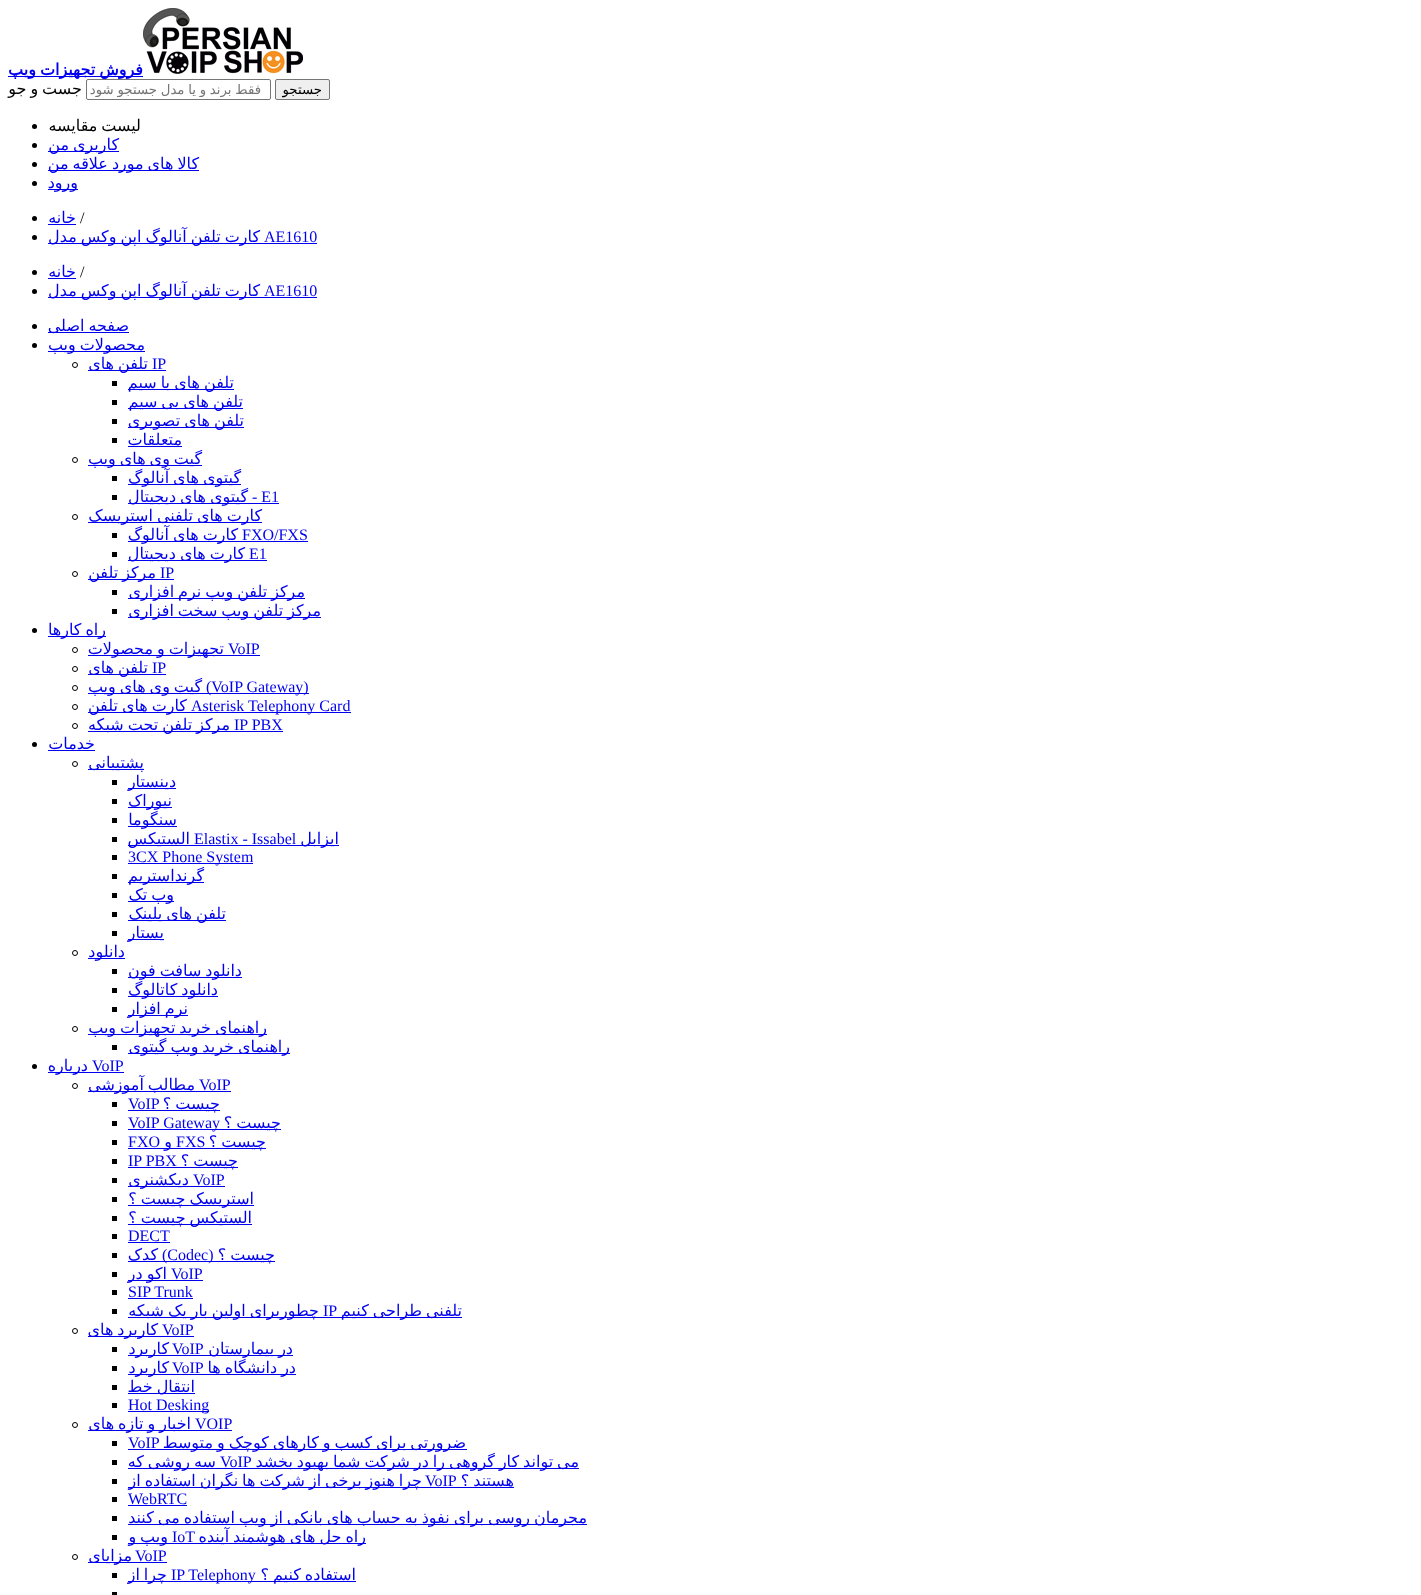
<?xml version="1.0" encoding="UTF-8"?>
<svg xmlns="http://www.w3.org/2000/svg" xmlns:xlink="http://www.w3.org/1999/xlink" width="1421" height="1595">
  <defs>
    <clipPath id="clip1"><rect x="90" y="82" width="177" height="15" /></clipPath>
  </defs>
  <rect width="100%" height="100%" fill="#ffffff" />
  <image x="143" y="8" width="160" height="66" xlink:href="image1.png" />
  <rect x="8" y="76" width="135" height="1" fill="#0000ee" />
  <rect x="275.5" y="79.5" width="54" height="20" rx="1.5" fill="#efefef" stroke="#767676" />
  <rect x="86.5" y="79.5" width="184" height="20" rx="1.5" fill="none" stroke="#767676" />
  <circle cx="34.5" cy="126.5" r="2.5" fill="#000000" />
  <rect x="48" y="151" width="71" height="1" fill="#0000ee" />
  <circle cx="34.5" cy="145.5" r="2.5" fill="#000000" />
  <rect x="48" y="170" width="151" height="1" fill="#0000ee" />
  <circle cx="34.5" cy="164.5" r="2.5" fill="#000000" />
  <rect x="48" y="189" width="30" height="1" fill="#0000ee" />
  <circle cx="34.5" cy="183.5" r="2.5" fill="#000000" />
  <rect x="48" y="224" width="28" height="1" fill="#0000ee" />
  <circle cx="34.5" cy="218.5" r="2.5" fill="#000000" />
  <rect x="48" y="243" width="269" height="1" fill="#0000ee" />
  <circle cx="34.5" cy="237.5" r="2.5" fill="#000000" />
  <rect x="48" y="278" width="28" height="1" fill="#0000ee" />
  <circle cx="34.5" cy="272.5" r="2.5" fill="#000000" />
  <rect x="48" y="297" width="269" height="1" fill="#0000ee" />
  <circle cx="34.5" cy="291.5" r="2.5" fill="#000000" />
  <rect x="48" y="332" width="81" height="1" fill="#0000ee" />
  <circle cx="34.5" cy="326.5" r="2.5" fill="#000000" />
  <rect x="48" y="351" width="97" height="1" fill="#0000ee" />
  <circle cx="34.5" cy="345.5" r="2.5" fill="#000000" />
  <rect x="88" y="370" width="78" height="1" fill="#0000ee" />
  <circle cx="75" cy="365" r="2.5" fill="none" stroke="#000000" />
  <rect x="128" y="389" width="106" height="1" fill="#0000ee" />
  <rect x="112" y="381" width="5" height="5" fill="#000000" />
  <rect x="128" y="408" width="115" height="1" fill="#0000ee" />
  <rect x="112" y="400" width="5" height="5" fill="#000000" />
  <rect x="128" y="427" width="116" height="1" fill="#0000ee" />
  <rect x="112" y="419" width="5" height="5" fill="#000000" />
  <rect x="128" y="446" width="54" height="1" fill="#0000ee" />
  <rect x="112" y="438" width="5" height="5" fill="#000000" />
  <rect x="88" y="465" width="114" height="1" fill="#0000ee" />
  <circle cx="75" cy="460" r="2.5" fill="none" stroke="#000000" />
  <rect x="128" y="484" width="113" height="1" fill="#0000ee" />
  <rect x="112" y="476" width="5" height="5" fill="#000000" />
  <rect x="128" y="503" width="151" height="1" fill="#0000ee" />
  <rect x="112" y="495" width="5" height="5" fill="#000000" />
  <rect x="88" y="522" width="174" height="1" fill="#0000ee" />
  <circle cx="75" cy="517" r="2.5" fill="none" stroke="#000000" />
  <rect x="238" y="541" width="70" height="1" fill="#0000ee" />
  <rect x="128" y="541" width="110" height="1" fill="#0000ee" />
  <rect x="112" y="533" width="5" height="5" fill="#000000" />
  <rect x="128" y="560" width="117" height="1" fill="#0000ee" />
  <rect x="245" y="560" width="22" height="1" fill="#0000ee" />
  <rect x="112" y="552" width="5" height="5" fill="#000000" />
  <rect x="88" y="579" width="86" height="1" fill="#0000ee" />
  <circle cx="75" cy="574" r="2.5" fill="none" stroke="#000000" />
  <rect x="128" y="598" width="177" height="1" fill="#0000ee" />
  <rect x="112" y="590" width="5" height="5" fill="#000000" />
  <rect x="128" y="617" width="193" height="1" fill="#0000ee" />
  <rect x="112" y="609" width="5" height="5" fill="#000000" />
  <rect x="48" y="636" width="58" height="1" fill="#0000ee" />
  <circle cx="34.5" cy="630.5" r="2.5" fill="#000000" />
  <rect x="88" y="655" width="172" height="1" fill="#0000ee" />
  <circle cx="75" cy="650" r="2.5" fill="none" stroke="#000000" />
  <rect x="88" y="674" width="78" height="1" fill="#0000ee" />
  <circle cx="75" cy="669" r="2.5" fill="none" stroke="#000000" />
  <rect x="202" y="693" width="107" height="1" fill="#0000ee" />
  <rect x="88" y="693" width="114" height="1" fill="#0000ee" />
  <circle cx="75" cy="688" r="2.5" fill="none" stroke="#000000" />
  <rect x="187" y="712" width="164" height="1" fill="#0000ee" />
  <rect x="88" y="712" width="99" height="1" fill="#0000ee" />
  <circle cx="75" cy="707" r="2.5" fill="none" stroke="#000000" />
  <rect x="88" y="731" width="195" height="1" fill="#0000ee" />
  <circle cx="75" cy="726" r="2.5" fill="none" stroke="#000000" />
  <rect x="48" y="750" width="47" height="1" fill="#0000ee" />
  <circle cx="34.5" cy="744.5" r="2.5" fill="#000000" />
  <rect x="88" y="769" width="56" height="1" fill="#0000ee" />
  <circle cx="75" cy="764" r="2.5" fill="none" stroke="#000000" />
  <rect x="128" y="788" width="48" height="1" fill="#0000ee" />
  <rect x="112" y="780" width="5" height="5" fill="#000000" />
  <rect x="128" y="807" width="44" height="1" fill="#0000ee" />
  <rect x="112" y="799" width="5" height="5" fill="#000000" />
  <rect x="128" y="826" width="49" height="1" fill="#0000ee" />
  <rect x="112" y="818" width="5" height="5" fill="#000000" />
  <rect x="128" y="845" width="211" height="1" fill="#0000ee" />
  <rect x="112" y="837" width="5" height="5" fill="#000000" />
  <rect x="128" y="863" width="125" height="1" fill="#0000ee" />
  <rect x="112" y="855" width="5" height="5" fill="#000000" />
  <rect x="128" y="882" width="76" height="1" fill="#0000ee" />
  <rect x="112" y="874" width="5" height="5" fill="#000000" />
  <rect x="128" y="901" width="46" height="1" fill="#0000ee" />
  <rect x="112" y="893" width="5" height="5" fill="#000000" />
  <rect x="128" y="920" width="98" height="1" fill="#0000ee" />
  <rect x="112" y="912" width="5" height="5" fill="#000000" />
  <rect x="128" y="939" width="36" height="1" fill="#0000ee" />
  <rect x="112" y="931" width="5" height="5" fill="#000000" />
  <rect x="88" y="958" width="37" height="1" fill="#0000ee" />
  <circle cx="75" cy="953" r="2.5" fill="none" stroke="#000000" />
  <rect x="128" y="977" width="114" height="1" fill="#0000ee" />
  <rect x="112" y="969" width="5" height="5" fill="#000000" />
  <rect x="128" y="996" width="90" height="1" fill="#0000ee" />
  <rect x="112" y="988" width="5" height="5" fill="#000000" />
  <rect x="128" y="1015" width="60" height="1" fill="#0000ee" />
  <rect x="112" y="1007" width="5" height="5" fill="#000000" />
  <rect x="88" y="1034" width="179" height="1" fill="#0000ee" />
  <circle cx="75" cy="1029" r="2.5" fill="none" stroke="#000000" />
  <rect x="128" y="1053" width="162" height="1" fill="#0000ee" />
  <rect x="112" y="1045" width="5" height="5" fill="#000000" />
  <rect x="48" y="1072" width="76" height="1" fill="#0000ee" />
  <circle cx="34.5" cy="1066.5" r="2.5" fill="#000000" />
  <rect x="88" y="1091" width="143" height="1" fill="#0000ee" />
  <circle cx="75" cy="1086" r="2.5" fill="none" stroke="#000000" />
  <rect x="128" y="1110" width="92" height="1" fill="#0000ee" />
  <rect x="112" y="1102" width="5" height="5" fill="#000000" />
  <rect x="128" y="1129" width="153" height="1" fill="#0000ee" />
  <rect x="112" y="1121" width="5" height="5" fill="#000000" />
  <rect x="128" y="1148" width="138" height="1" fill="#0000ee" />
  <rect x="112" y="1140" width="5" height="5" fill="#000000" />
  <rect x="128" y="1167" width="110" height="1" fill="#0000ee" />
  <rect x="112" y="1159" width="5" height="5" fill="#000000" />
  <rect x="128" y="1186" width="97" height="1" fill="#0000ee" />
  <rect x="112" y="1178" width="5" height="5" fill="#000000" />
  <rect x="128" y="1205" width="126" height="1" fill="#0000ee" />
  <rect x="112" y="1197" width="5" height="5" fill="#000000" />
  <rect x="128" y="1224" width="124" height="1" fill="#0000ee" />
  <rect x="112" y="1216" width="5" height="5" fill="#000000" />
  <rect x="128" y="1242" width="42" height="1" fill="#0000ee" />
  <rect x="112" y="1234" width="5" height="5" fill="#000000" />
  <rect x="128" y="1261" width="147" height="1" fill="#0000ee" />
  <rect x="112" y="1253" width="5" height="5" fill="#000000" />
  <rect x="128" y="1280" width="75" height="1" fill="#0000ee" />
  <rect x="112" y="1272" width="5" height="5" fill="#000000" />
  <rect x="128" y="1298" width="65" height="1" fill="#0000ee" />
  <rect x="112" y="1290" width="5" height="5" fill="#000000" />
  <rect x="128" y="1317" width="334" height="1" fill="#0000ee" />
  <rect x="112" y="1309" width="5" height="5" fill="#000000" />
  <rect x="88" y="1336" width="70" height="1" fill="#0000ee" />
  <rect x="158" y="1336" width="36" height="1" fill="#0000ee" />
  <circle cx="75" cy="1331" r="2.5" fill="none" stroke="#000000" />
  <rect x="128" y="1355" width="165" height="1" fill="#0000ee" />
  <rect x="112" y="1347" width="5" height="5" fill="#000000" />
  <rect x="128" y="1374" width="168" height="1" fill="#0000ee" />
  <rect x="112" y="1366" width="5" height="5" fill="#000000" />
  <rect x="128" y="1393" width="67" height="1" fill="#0000ee" />
  <rect x="112" y="1385" width="5" height="5" fill="#000000" />
  <rect x="128" y="1411" width="81" height="1" fill="#0000ee" />
  <rect x="112" y="1403" width="5" height="5" fill="#000000" />
  <rect x="88" y="1430" width="144" height="1" fill="#0000ee" />
  <circle cx="75" cy="1425" r="2.5" fill="none" stroke="#000000" />
  <rect x="128" y="1449" width="339" height="1" fill="#0000ee" />
  <rect x="112" y="1441" width="5" height="5" fill="#000000" />
  <rect x="128" y="1468" width="451" height="1" fill="#0000ee" />
  <rect x="112" y="1460" width="5" height="5" fill="#000000" />
  <rect x="128" y="1487" width="386" height="1" fill="#0000ee" />
  <rect x="112" y="1479" width="5" height="5" fill="#000000" />
  <rect x="128" y="1505" width="59" height="1" fill="#0000ee" />
  <rect x="112" y="1497" width="5" height="5" fill="#000000" />
  <rect x="128" y="1524" width="459" height="1" fill="#0000ee" />
  <rect x="112" y="1516" width="5" height="5" fill="#000000" />
  <rect x="128" y="1543" width="238" height="1" fill="#0000ee" />
  <rect x="112" y="1535" width="5" height="5" fill="#000000" />
  <rect x="88" y="1562" width="79" height="1" fill="#0000ee" />
  <circle cx="75" cy="1557" r="2.5" fill="none" stroke="#000000" />
  <rect x="128" y="1581" width="228" height="1" fill="#0000ee" />
  <rect x="112" y="1573" width="5" height="5" fill="#000000" />
  <rect x="112" y="1592" width="5" height="3" fill="#000000" />
  <text x="143" y="75" word-spacing="-1.1" style="font-family: DejaVu Sans; font-size: 16px; font-weight: bold; direction: rtl; fill: #0000ee">فروش تجهیزات ویپ</text>
  <text x="322" y="94" style="font-family: DejaVu Sans; font-size: 13.3px; direction: rtl; fill: #000000">جستجو</text>
  <g clip-path="url(#clip1)">
    <text x="261" y="94" word-spacing="-0.5" style="font-family: DejaVu Sans; font-size: 13.3px; direction: rtl; fill: #757575">فقط برند و یا مدل جستجو شود</text>
  </g>
  <text x="82" y="94" word-spacing="-1.1" style="font-family: DejaVu Sans; font-size: 16px; direction: rtl; fill: #000000">جست و جو</text>
  <text x="141" y="131" word-spacing="-1.1" style="font-family: DejaVu Sans; font-size: 16px; direction: rtl; fill: #000000">لیست مقایسه</text>
  <text x="119" y="150" word-spacing="-1.1" style="font-family: DejaVu Sans; font-size: 16px; direction: rtl; fill: #0000ee">کاربری من</text>
  <text x="199" y="169" word-spacing="-1.1" style="font-family: DejaVu Sans; font-size: 16px; direction: rtl; fill: #0000ee">کالا های مورد علاقه من</text>
  <text x="78" y="188" style="font-family: DejaVu Sans; font-size: 16px; direction: rtl; fill: #0000ee">ورود</text>
  <text x="80" y="223" style="font-family: Liberation Serif; font-size: 16px; fill: #000000">/</text>
  <text x="76" y="223" style="font-family: DejaVu Sans; font-size: 16px; direction: rtl; fill: #0000ee">خانه</text>
  <text x="264" y="242" style="font-family: Liberation Serif; font-size: 16px; fill: #0000ee">AE1610</text>
  <text x="260" y="242" word-spacing="-1.1" style="font-family: DejaVu Sans; font-size: 16px; direction: rtl; fill: #0000ee">کارت تلفن آنالوگ اپن وکس مدل</text>
  <text x="80" y="277" style="font-family: Liberation Serif; font-size: 16px; fill: #000000">/</text>
  <text x="76" y="277" style="font-family: DejaVu Sans; font-size: 16px; direction: rtl; fill: #0000ee">خانه</text>
  <text x="264" y="296" style="font-family: Liberation Serif; font-size: 16px; fill: #0000ee">AE1610</text>
  <text x="260" y="296" word-spacing="-1.1" style="font-family: DejaVu Sans; font-size: 16px; direction: rtl; fill: #0000ee">کارت تلفن آنالوگ اپن وکس مدل</text>
  <text x="129" y="331" word-spacing="-1.1" style="font-family: DejaVu Sans; font-size: 16px; direction: rtl; fill: #0000ee">صفحه اصلی</text>
  <text x="145" y="350" word-spacing="-1.1" style="font-family: DejaVu Sans; font-size: 16px; direction: rtl; fill: #0000ee">محصولات ویپ</text>
  <text x="152" y="369" style="font-family: Liberation Serif; font-size: 16px; fill: #0000ee">IP</text>
  <text x="148" y="369" word-spacing="-1.1" style="font-family: DejaVu Sans; font-size: 16px; direction: rtl; fill: #0000ee">تلفن های</text>
  <text x="234" y="388" word-spacing="-1.1" style="font-family: DejaVu Sans; font-size: 16px; direction: rtl; fill: #0000ee">تلفن های</text>
  <text x="170" y="388" word-spacing="-1.1" style="font-family: DejaVu Sans; font-size: 16px; direction: rtl; fill: #0000ee">با سیم</text>
  <text x="243" y="407" word-spacing="-1.1" style="font-family: DejaVu Sans; font-size: 16px; direction: rtl; fill: #0000ee">تلفن های بی سیم</text>
  <text x="244" y="426" word-spacing="-1.1" style="font-family: DejaVu Sans; font-size: 16px; direction: rtl; fill: #0000ee">تلفن های تصویری</text>
  <text x="182" y="445" style="font-family: DejaVu Sans; font-size: 16px; direction: rtl; fill: #0000ee">متعلقات</text>
  <text x="202" y="464" word-spacing="-1.1" style="font-family: DejaVu Sans; font-size: 16px; direction: rtl; fill: #0000ee">گیت وی های ویپ</text>
  <text x="241" y="483" word-spacing="-1.1" style="font-family: DejaVu Sans; font-size: 16px; direction: rtl; fill: #0000ee">گیتوی های آنالوگ</text>
  <text x="252" y="502" style="font-family: Liberation Serif; font-size: 16px; fill: #0000ee">- E1</text>
  <text x="248" y="502" word-spacing="-1.1" style="font-family: DejaVu Sans; font-size: 16px; direction: rtl; fill: #0000ee">گیتوی های دیجیتال</text>
  <text x="262" y="521" word-spacing="-1.1" style="font-family: DejaVu Sans; font-size: 16px; direction: rtl; fill: #0000ee">کارت های تلفنی استریسک</text>
  <text x="242" y="540" style="font-family: Liberation Serif; font-size: 16px; fill: #0000ee">FXO/FXS</text>
  <text x="238" y="540" word-spacing="-1.1" style="font-family: DejaVu Sans; font-size: 16px; direction: rtl; fill: #0000ee">کارت های آنالوگ</text>
  <text x="249" y="559" style="font-family: Liberation Serif; font-size: 16px; fill: #0000ee">E1</text>
  <text x="245" y="559" word-spacing="-1.1" style="font-family: DejaVu Sans; font-size: 16px; direction: rtl; fill: #0000ee">کارت های دیجیتال</text>
  <text x="160" y="578" style="font-family: Liberation Serif; font-size: 16px; fill: #0000ee">IP</text>
  <text x="156" y="578" word-spacing="-1.1" style="font-family: DejaVu Sans; font-size: 16px; direction: rtl; fill: #0000ee">مرکز تلفن</text>
  <text x="305" y="597" word-spacing="-1.1" style="font-family: DejaVu Sans; font-size: 16px; direction: rtl; fill: #0000ee">مرکز تلفن ویپ نرم افزاری</text>
  <text x="321" y="616" word-spacing="-1.1" style="font-family: DejaVu Sans; font-size: 16px; direction: rtl; fill: #0000ee">مرکز تلفن ویپ سخت افزاری</text>
  <text x="106" y="635" word-spacing="-1.1" style="font-family: DejaVu Sans; font-size: 16px; direction: rtl; fill: #0000ee">راه کارها</text>
  <text x="228" y="654" style="font-family: Liberation Serif; font-size: 16px; fill: #0000ee">VoIP</text>
  <text x="224" y="654" word-spacing="-1.1" style="font-family: DejaVu Sans; font-size: 16px; direction: rtl; fill: #0000ee">تجهیزات و محصولات</text>
  <text x="152" y="673" style="font-family: Liberation Serif; font-size: 16px; fill: #0000ee">IP</text>
  <text x="148" y="673" word-spacing="-1.1" style="font-family: DejaVu Sans; font-size: 16px; direction: rtl; fill: #0000ee">تلفن های</text>
  <text x="206" y="692" style="font-family: Liberation Serif; font-size: 16px; fill: #0000ee">(VoIP Gateway)</text>
  <text x="202" y="692" word-spacing="-1.1" style="font-family: DejaVu Sans; font-size: 16px; direction: rtl; fill: #0000ee">گیت وی های ویپ</text>
  <text x="191" y="711" style="font-family: Liberation Serif; font-size: 16px; fill: #0000ee">Asterisk Telephony Card</text>
  <text x="187" y="711" word-spacing="-1.1" style="font-family: DejaVu Sans; font-size: 16px; direction: rtl; fill: #0000ee">کارت های تلفن</text>
  <text x="234" y="730" style="font-family: Liberation Serif; font-size: 16px; fill: #0000ee">IP PBX</text>
  <text x="230" y="730" word-spacing="-1.1" style="font-family: DejaVu Sans; font-size: 16px; direction: rtl; fill: #0000ee">مرکز تلفن تحت شبکه</text>
  <text x="95" y="749" style="font-family: DejaVu Sans; font-size: 16px; direction: rtl; fill: #0000ee">خدمات</text>
  <text x="144" y="768" style="font-family: DejaVu Sans; font-size: 16px; direction: rtl; fill: #0000ee">پشتیبانی</text>
  <text x="176" y="787" style="font-family: DejaVu Sans; font-size: 16px; direction: rtl; fill: #0000ee">دینستار</text>
  <text x="172" y="806" style="font-family: DejaVu Sans; font-size: 16px; direction: rtl; fill: #0000ee">نیوراک</text>
  <text x="177" y="825" style="font-family: DejaVu Sans; font-size: 16px; direction: rtl; fill: #0000ee">سنگوما</text>
  <text x="339" y="844" style="font-family: DejaVu Sans; font-size: 16px; direction: rtl; fill: #0000ee">ایزابل</text>
  <text x="194" y="844" style="font-family: Liberation Serif; font-size: 16px; fill: #0000ee">Elastix - Issabel</text>
  <text x="190" y="844" style="font-family: DejaVu Sans; font-size: 16px; direction: rtl; fill: #0000ee">الستیکس</text>
  <text x="128" y="862" style="font-family: Liberation Serif; font-size: 16px; fill: #0000ee">3CX Phone System</text>
  <text x="204" y="881" style="font-family: DejaVu Sans; font-size: 16px; direction: rtl; fill: #0000ee">گرنداستریم</text>
  <text x="174" y="900" word-spacing="-1.1" style="font-family: DejaVu Sans; font-size: 16px; direction: rtl; fill: #0000ee">وپ تک</text>
  <text x="226" y="919" word-spacing="-1.1" style="font-family: DejaVu Sans; font-size: 16px; direction: rtl; fill: #0000ee">تلفن های یلینک</text>
  <text x="164" y="938" style="font-family: DejaVu Sans; font-size: 16px; direction: rtl; fill: #0000ee">یستار</text>
  <text x="125" y="957" style="font-family: DejaVu Sans; font-size: 16px; direction: rtl; fill: #0000ee">دانلود</text>
  <text x="242" y="976" word-spacing="-1.1" style="font-family: DejaVu Sans; font-size: 16px; direction: rtl; fill: #0000ee">دانلود سافت فون</text>
  <text x="218" y="995" word-spacing="-1.1" style="font-family: DejaVu Sans; font-size: 16px; direction: rtl; fill: #0000ee">دانلود کاتالوگ</text>
  <text x="188" y="1014" word-spacing="-1.1" style="font-family: DejaVu Sans; font-size: 16px; direction: rtl; fill: #0000ee">نرم افزار</text>
  <text x="267" y="1033" word-spacing="-1.1" style="font-family: DejaVu Sans; font-size: 16px; direction: rtl; fill: #0000ee">راهنمای خرید تجهیزات ویپ</text>
  <text x="290" y="1052" word-spacing="-1.1" style="font-family: DejaVu Sans; font-size: 16px; direction: rtl; fill: #0000ee">راهنمای خرید ویپ گیتوی</text>
  <text x="92" y="1071" style="font-family: Liberation Serif; font-size: 16px; fill: #0000ee">VoIP</text>
  <text x="88" y="1071" style="font-family: DejaVu Sans; font-size: 16px; direction: rtl; fill: #0000ee">درباره</text>
  <text x="199" y="1090" style="font-family: Liberation Serif; font-size: 16px; fill: #0000ee">VoIP</text>
  <text x="195" y="1090" word-spacing="-1.1" style="font-family: DejaVu Sans; font-size: 16px; direction: rtl; fill: #0000ee">مطالب آموزشی</text>
  <text x="220" y="1109" word-spacing="-1.1" style="font-family: DejaVu Sans; font-size: 16px; direction: rtl; fill: #0000ee">چیست ؟</text>
  <text x="128" y="1109" style="font-family: Liberation Serif; font-size: 16px; fill: #0000ee">VoIP</text>
  <text x="281" y="1128" word-spacing="-1.1" style="font-family: DejaVu Sans; font-size: 16px; direction: rtl; fill: #0000ee">چیست ؟</text>
  <text x="128" y="1128" style="font-family: Liberation Serif; font-size: 16px; fill: #0000ee">VoIP Gateway</text>
  <text x="266" y="1147" word-spacing="-1.1" style="font-family: DejaVu Sans; font-size: 16px; direction: rtl; fill: #0000ee">چیست ؟</text>
  <text x="176" y="1147" style="font-family: Liberation Serif; font-size: 16px; fill: #0000ee">FXS</text>
  <text x="172" y="1147" style="font-family: DejaVu Sans; font-size: 16px; direction: rtl; fill: #0000ee">و</text>
  <text x="128" y="1147" style="font-family: Liberation Serif; font-size: 16px; fill: #0000ee">FXO</text>
  <text x="238" y="1166" word-spacing="-1.1" style="font-family: DejaVu Sans; font-size: 16px; direction: rtl; fill: #0000ee">چیست ؟</text>
  <text x="128" y="1166" style="font-family: Liberation Serif; font-size: 16px; fill: #0000ee">IP PBX</text>
  <text x="193" y="1185" style="font-family: Liberation Serif; font-size: 16px; fill: #0000ee">VoIP</text>
  <text x="189" y="1185" style="font-family: DejaVu Sans; font-size: 16px; direction: rtl; fill: #0000ee">دیکشنری</text>
  <text x="254" y="1204" word-spacing="-1.1" style="font-family: DejaVu Sans; font-size: 16px; direction: rtl; fill: #0000ee">استریسک چیست ؟</text>
  <text x="252" y="1223" word-spacing="-1.1" style="font-family: DejaVu Sans; font-size: 16px; direction: rtl; fill: #0000ee">الستیکس چیست ؟</text>
  <text x="128" y="1241" style="font-family: Liberation Serif; font-size: 16px; fill: #0000ee">DECT</text>
  <text x="275" y="1260" word-spacing="-1.1" style="font-family: DejaVu Sans; font-size: 16px; direction: rtl; fill: #0000ee">چیست ؟</text>
  <text x="162" y="1260" style="font-family: Liberation Serif; font-size: 16px; fill: #0000ee">(Codec)</text>
  <text x="158" y="1260" style="font-family: DejaVu Sans; font-size: 16px; direction: rtl; fill: #0000ee">کدک</text>
  <text x="171" y="1279" style="font-family: Liberation Serif; font-size: 16px; fill: #0000ee">VoIP</text>
  <text x="167" y="1279" word-spacing="-1.1" style="font-family: DejaVu Sans; font-size: 16px; direction: rtl; fill: #0000ee">اکو در</text>
  <text x="128" y="1297" style="font-family: Liberation Serif; font-size: 16px; fill: #0000ee">SIP Trunk</text>
  <text x="462" y="1316" word-spacing="-1.1" style="font-family: DejaVu Sans; font-size: 16px; direction: rtl; fill: #0000ee">تلفنی طراحی کنیم</text>
  <text x="323" y="1316" style="font-family: Liberation Serif; font-size: 16px; fill: #0000ee">IP</text>
  <text x="319" y="1316" word-spacing="-1.1" style="font-family: DejaVu Sans; font-size: 16px; direction: rtl; fill: #0000ee">چطوربرای اولین بار یک شبکه</text>
  <text x="162" y="1335" style="font-family: Liberation Serif; font-size: 16px; fill: #0000ee">VoIP</text>
  <text x="158" y="1335" word-spacing="-1.1" style="font-family: DejaVu Sans; font-size: 16px; direction: rtl; fill: #0000ee">کاربرد های</text>
  <text x="293" y="1354" word-spacing="-1.1" style="font-family: DejaVu Sans; font-size: 16px; direction: rtl; fill: #0000ee">در بیمارستان</text>
  <text x="172" y="1354" style="font-family: Liberation Serif; font-size: 16px; fill: #0000ee">VoIP</text>
  <text x="169" y="1354" style="font-family: DejaVu Sans; font-size: 16px; direction: rtl; fill: #0000ee">کاربرد</text>
  <text x="296" y="1373" word-spacing="-1.1" style="font-family: DejaVu Sans; font-size: 16px; direction: rtl; fill: #0000ee">در دانشگاه ها</text>
  <text x="172" y="1373" style="font-family: Liberation Serif; font-size: 16px; fill: #0000ee">VoIP</text>
  <text x="169" y="1373" style="font-family: DejaVu Sans; font-size: 16px; direction: rtl; fill: #0000ee">کاربرد</text>
  <text x="195" y="1392" word-spacing="-1.1" style="font-family: DejaVu Sans; font-size: 16px; direction: rtl; fill: #0000ee">انتقال خط</text>
  <text x="128" y="1410" style="font-family: Liberation Serif; font-size: 16px; fill: #0000ee">Hot Desking</text>
  <text x="195" y="1429" style="font-family: Liberation Serif; font-size: 16px; fill: #0000ee">VOIP</text>
  <text x="191" y="1429" word-spacing="-1.1" style="font-family: DejaVu Sans; font-size: 16px; direction: rtl; fill: #0000ee">اخبار و تازه های</text>
  <text x="466" y="1448" word-spacing="-1.1" style="font-family: DejaVu Sans; font-size: 16px; direction: rtl; fill: #0000ee">ضرورتی برای کسب و کارهای کوچک و متوسط</text>
  <text x="128" y="1448" style="font-family: Liberation Serif; font-size: 16px; fill: #0000ee">VoIP</text>
  <text x="579" y="1467" word-spacing="-1.1" style="font-family: DejaVu Sans; font-size: 16px; direction: rtl; fill: #0000ee">می تواند کار گروهی را در شرکت شما بهبود بخشد</text>
  <text x="220" y="1467" style="font-family: Liberation Serif; font-size: 16px; fill: #0000ee">VoIP</text>
  <text x="216" y="1467" word-spacing="-1.1" style="font-family: DejaVu Sans; font-size: 16px; direction: rtl; fill: #0000ee">سه روشی که</text>
  <text x="514" y="1486" word-spacing="-1.1" style="font-family: DejaVu Sans; font-size: 16px; direction: rtl; fill: #0000ee">هستند ؟</text>
  <text x="425" y="1486" style="font-family: Liberation Serif; font-size: 16px; fill: #0000ee">VoIP</text>
  <text x="422" y="1486" word-spacing="-1.1" style="font-family: DejaVu Sans; font-size: 16px; direction: rtl; fill: #0000ee">چرا هنوز برخی از شرکت ها نگران استفاده از</text>
  <text x="128" y="1504" style="font-family: Liberation Serif; font-size: 16px; fill: #0000ee">WebRTC</text>
  <text x="587" y="1523" word-spacing="-1.1" style="font-family: DejaVu Sans; font-size: 16px; direction: rtl; fill: #0000ee">مجرمان روسی برای نفوذ به حساب های بانکی از ویپ استفاده می کنند</text>
  <text x="366" y="1542" word-spacing="-1.1" style="font-family: DejaVu Sans; font-size: 16px; direction: rtl; fill: #0000ee">راه حل های هوشمند آینده</text>
  <text x="172" y="1542" style="font-family: Liberation Serif; font-size: 16px; fill: #0000ee">IoT</text>
  <text x="168" y="1542" word-spacing="-1.1" style="font-family: DejaVu Sans; font-size: 16px; direction: rtl; fill: #0000ee">ویپ و</text>
  <text x="135" y="1561" style="font-family: Liberation Serif; font-size: 16px; fill: #0000ee">VoIP</text>
  <text x="132" y="1561" style="font-family: DejaVu Sans; font-size: 16px; direction: rtl; fill: #0000ee">مزایای</text>
  <text x="356" y="1580" word-spacing="-1.1" style="font-family: DejaVu Sans; font-size: 16px; direction: rtl; fill: #0000ee">استفاده کنیم ؟</text>
  <text x="171" y="1580" style="font-family: Liberation Serif; font-size: 16px; fill: #0000ee">IP Telephony</text>
  <text x="167" y="1580" word-spacing="-1.1" style="font-family: DejaVu Sans; font-size: 16px; direction: rtl; fill: #0000ee">چرا از</text>
</svg>
